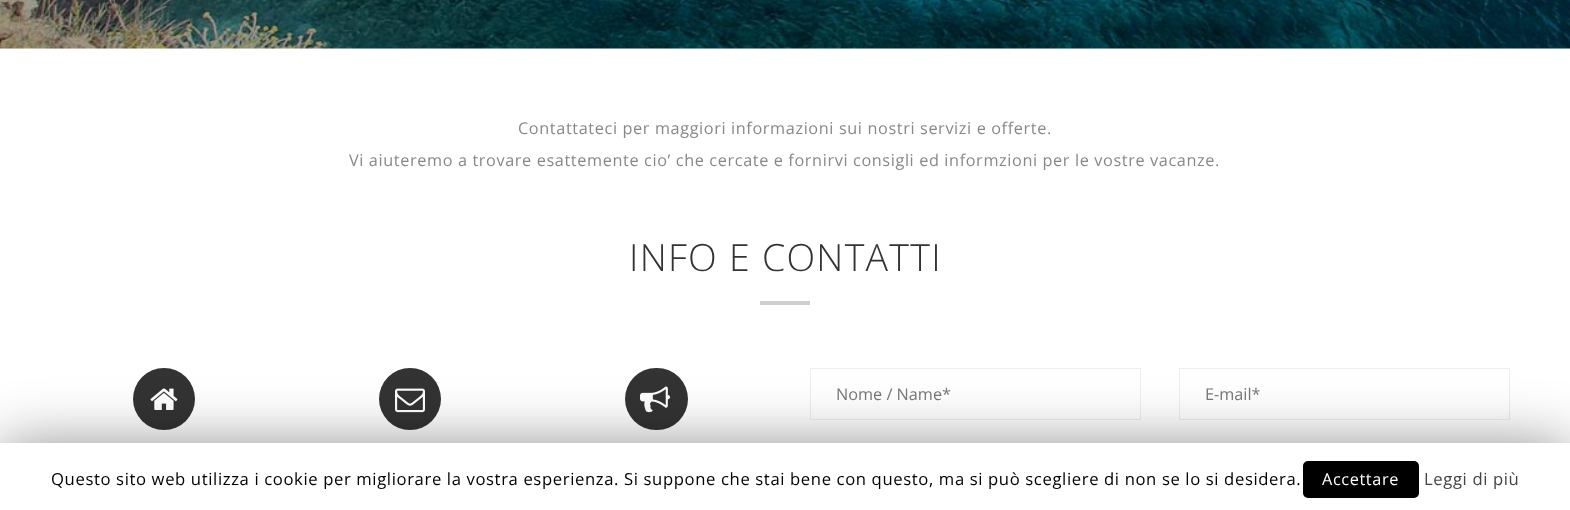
<?xml version="1.0" encoding="UTF-8"?>
<svg xmlns="http://www.w3.org/2000/svg" xmlns:xlink="http://www.w3.org/1999/xlink" width="1570" height="510">
  <rect width="100%" height="100%" fill="#ffffff" />
  <rect y="48" width="1570" height="1" fill="#f8f8f8" />
  <image x="0" y="0" width="1570" height="49" xlink:href="image1.png" />
  <rect x="760" y="301" width="50" height="4" fill="#cecece" />
  <circle cx="164" cy="399" r="31" fill="#333333" />
  <image x="150" y="388" width="28" height="22" xlink:href="image2.png" />
  <circle cx="410" cy="399" r="31" fill="#333333" />
  <image x="395" y="388" width="30" height="25" xlink:href="image3.png" />
  <rect x="625" y="368" width="63" height="62" rx="31" fill="#333333" />
  <image x="640" y="386" width="30" height="27" xlink:href="image4.png" />
  <rect x="810.5" y="368.5" width="330" height="51" fill="none" stroke="#eeeeee" />
  <rect x="1179.5" y="368.5" width="330" height="51" fill="none" stroke="#eeeeee" />
  <rect y="449" width="1570" height="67" fill="#000000" fill-opacity="0.5" filter="blur(31px)" />
  <rect y="443" width="1570" height="67" fill="#ffffff" />
  <rect x="1303" y="461" width="116" height="37" rx="5" fill="#000000" />
  <text x="518" y="134" style="font-family: Open Sans; font-size: 16.25px; letter-spacing: 0.62px; fill: #888888">Contattateci per maggiori informazioni sui nostri servizi e offerte.</text>
  <text x="349" y="166" style="font-family: Open Sans; font-size: 16.25px; letter-spacing: 0.62px; fill: #888888">Vi aiuteremo a trovare esattemente cio’ che cercate e fornirvi consigli ed informzioni per le vostre vacanze.</text>
  <text x="629" y="271" style="font-family: Open Sans; font-size: 37.5px; font-weight: 300; letter-spacing: 1.25px; fill: #333333">INFO E CONTATTI</text>
  <text x="836" y="400" style="font-family: Open Sans; font-size: 16.25px; fill: #757575">Nome / Name*</text>
  <text x="1205" y="400" style="font-family: Open Sans; font-size: 16.25px; fill: #757575">E-mail*</text>
  <text x="51" y="485" style="font-family: Open Sans; font-size: 16.67px; letter-spacing: 0.62px; fill: #000000">Questo sito web utilizza i cookie per migliorare la vostra esperienza. Si suppone che stai bene con questo, ma si può scegliere di non se lo si desidera.</text>
  <text x="1322" y="485" style="font-family: Open Sans; font-size: 16.25px; letter-spacing: 0.62px; fill: #ffffff">Accettare</text>
  <text x="1424" y="485" style="font-family: Open Sans; font-size: 16.67px; letter-spacing: 0.62px; fill: #444444">Leggi di più</text>
</svg>
